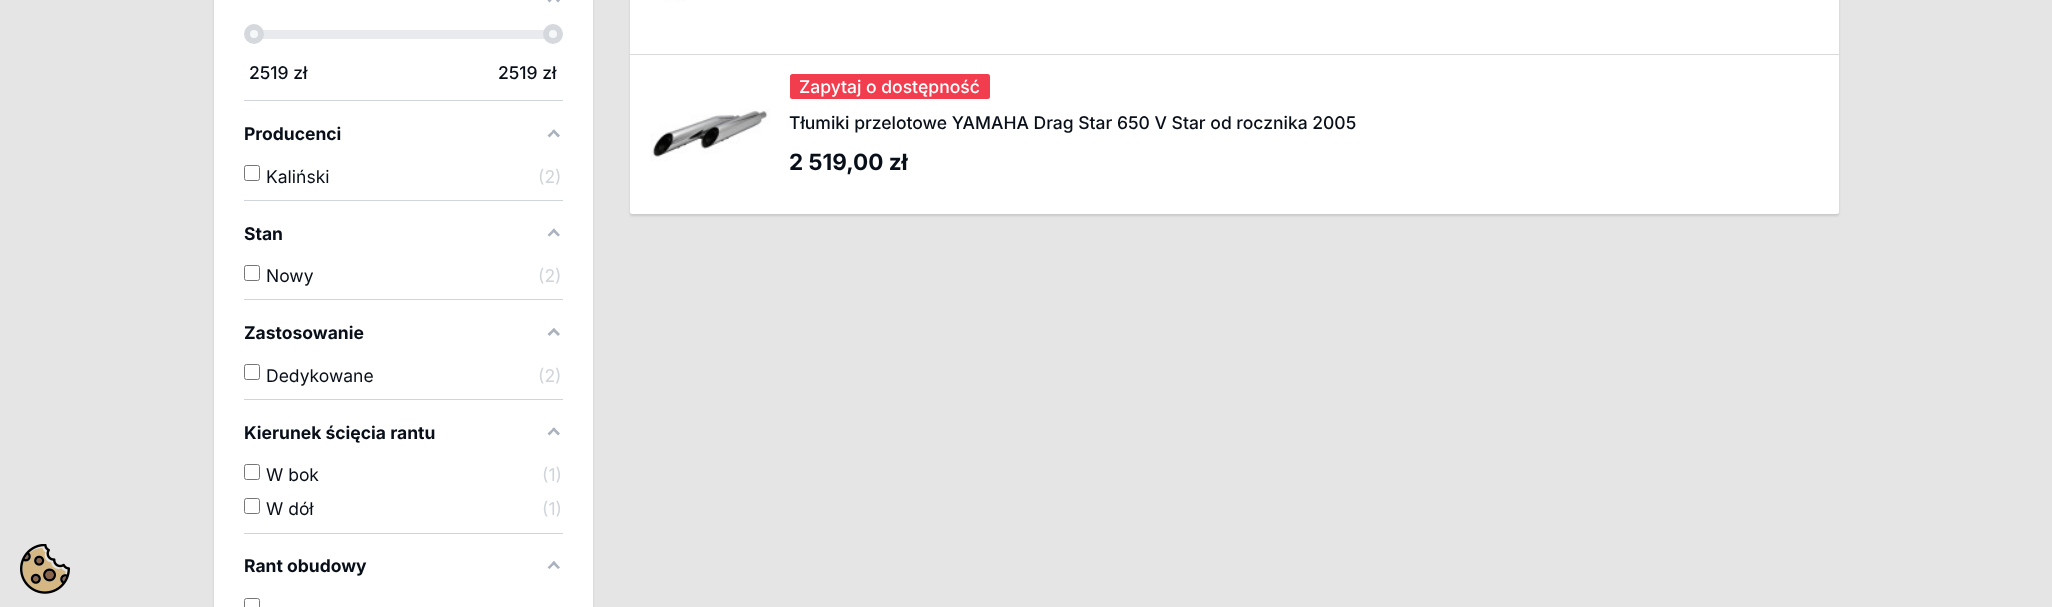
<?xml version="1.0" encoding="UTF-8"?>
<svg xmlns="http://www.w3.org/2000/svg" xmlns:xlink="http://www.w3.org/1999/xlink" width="2052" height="607">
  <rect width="100%" height="100%" fill="#e5e5e5" />
  <image x="20" y="544" width="50" height="50" xlink:href="image1.png" />
  <rect x="214" y="-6" width="379" height="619" rx="2.5" fill="#000000" fill-opacity="0.12" filter="blur(1px)" />
  <rect x="214" width="379" height="607" fill="#ffffff" />
  <rect x="244" y="100" width="319" height="1" fill="#d0d5db" />
  <path d="M 554 -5.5 l 6 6 l -2 2 l -6 -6.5 z m 0 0 l 1.5 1.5 l -6 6.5 l -2 -2 z" fill="#aab2bd" />
  <rect x="262" y="30" width="283" height="9" fill="#e8eaed" />
  <circle cx="254" cy="34" r="7" fill="#f6f7f8" stroke="#d5d9de" stroke-width="6" />
  <circle cx="553" cy="34" r="7" fill="#f6f7f8" stroke="#d5d9de" stroke-width="6" />
  <rect x="244" y="200" width="319" height="1" fill="#d0d5db" />
  <path d="M 554 129.5 l 6 6 l -2 2 l -6 -6.5 z" fill="#aab2bd" />
  <path d="M 554 129.5 l 1.5 1.5 l -6 6.5 l -2 -2 z" fill="#aab2bd" />
  <rect x="244.5" y="165.5" width="15" height="15" rx="2" fill="none" stroke="#767676" />
  <rect x="244" y="299" width="319" height="1" fill="#d0d5db" />
  <path d="M 554 228.5 l 6 6.5 l -2 1.5 l -6 -6 z" fill="#aab2bd" />
  <path d="M 554 228.5 l 1.5 2 l -6 6 l -2 -1.5 z" fill="#aab2bd" />
  <rect x="244.5" y="265.5" width="15" height="15" rx="2" fill="none" stroke="#767676" />
  <rect x="244" y="399" width="319" height="1" fill="#d0d5db" />
  <path d="M 554 328 l 6 6 l -2 2 l -6 -6 z" fill="#aab2bd" />
  <path d="M 554 328 l 1.5 2 l -6 6 l -2 -2 z" fill="#aab2bd" />
  <rect x="244.5" y="364.5" width="15" height="15" rx="2" fill="none" stroke="#767676" />
  <rect x="244" y="533" width="319" height="1" fill="#d0d5db" />
  <path d="M 554 427.5 l 6 6 l -2 2 l -6 -6.5 z" fill="#aab2bd" />
  <path d="M 554 427.5 l 1.5 1.5 l -6 6.5 l -2 -2 z" fill="#aab2bd" />
  <rect x="244.5" y="464.5" width="15" height="15" rx="2" fill="none" stroke="#767676" />
  <rect x="244.5" y="498.5" width="15" height="15" rx="2" fill="none" stroke="#767676" />
  <path d="M 554 561 l 6 6.5 l -2 1.5 l -6 -6 z" fill="#aab2bd" />
  <path d="M 554 561 l 1.5 2 l -6 6 l -2 -1.5 z" fill="#aab2bd" />
  <rect x="244.5" y="598.5" width="15" height="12" rx="2" fill="none" stroke="#767676" />
  <rect x="630" y="-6" width="1209" height="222" rx="2.5" fill="#000000" fill-opacity="0.12" filter="blur(1px)" />
  <rect x="630" y="-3" width="1209" height="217" rx="2.5" fill="#ffffff" />
  <image x="664" y="0" width="21" height="2" xlink:href="image2.png" />
  <rect x="630" y="54" width="1209" height="1" fill="#dadada" />
  <image x="650" y="109" width="120" height="52" xlink:href="image3.png" />
  <rect x="790" y="74" width="200" height="25" rx="2.5" fill="#f23d4f" />
  <text x="249" y="79" style="font-family: Inter; font-size: 17.5px; font-weight: 500; fill: #080f19">2519 zł</text>
  <text x="498" y="79" style="font-family: Inter; font-size: 17.5px; font-weight: 500; fill: #080f19">2519 zł</text>
  <text x="244" y="140" style="font-family: Inter; font-size: 17.5px; font-weight: bold; fill: #080f19">Producenci</text>
  <text x="266" y="183" style="font-family: Inter; font-size: 17.5px; fill: #080f19">Kaliński</text>
  <text x="538" y="183" style="font-family: Inter; font-size: 17.5px; fill: #d0d5db">(2)</text>
  <text x="244" y="240" style="font-family: Inter; font-size: 17.5px; font-weight: bold; fill: #080f19">Stan</text>
  <text x="266" y="282" style="font-family: Inter; font-size: 17.5px; fill: #080f19">Nowy</text>
  <text x="538" y="282" style="font-family: Inter; font-size: 17.5px; fill: #d0d5db">(2)</text>
  <text x="244" y="339" style="font-family: Inter; font-size: 17.5px; font-weight: bold; fill: #080f19">Zastosowanie</text>
  <text x="266" y="382" style="font-family: Inter; font-size: 17.5px; fill: #080f19">Dedykowane</text>
  <text x="538" y="382" style="font-family: Inter; font-size: 17.5px; fill: #d0d5db">(2)</text>
  <text x="244" y="439" style="font-family: Inter; font-size: 17.5px; font-weight: bold; fill: #080f19">Kierunek ścięcia rantu</text>
  <text x="266" y="481" style="font-family: Inter; font-size: 17.5px; fill: #080f19">W bok</text>
  <text x="542" y="481" style="font-family: Inter; font-size: 17.5px; fill: #d0d5db">(1)</text>
  <text x="266" y="515" style="font-family: Inter; font-size: 17.5px; fill: #080f19">W dół</text>
  <text x="542" y="515" style="font-family: Inter; font-size: 17.5px; fill: #d0d5db">(1)</text>
  <text x="244" y="572" style="font-family: Inter; font-size: 17.5px; font-weight: bold; fill: #080f19">Rant obudowy</text>
  <text x="799" y="93" style="font-family: Inter; font-size: 17.5px; font-weight: 500; fill: #ffffff">Zapytaj o dostępność</text>
  <text x="789" y="129" style="font-family: Inter; font-size: 17.5px; font-weight: 500; fill: #080f19">Tłumiki przelotowe YAMAHA Drag Star 650 V Star od rocznika 2005</text>
  <text x="789" y="170" style="font-family: Inter; font-size: 22.5px; font-weight: bold; fill: #080f19">2 519,00 zł</text>
</svg>
